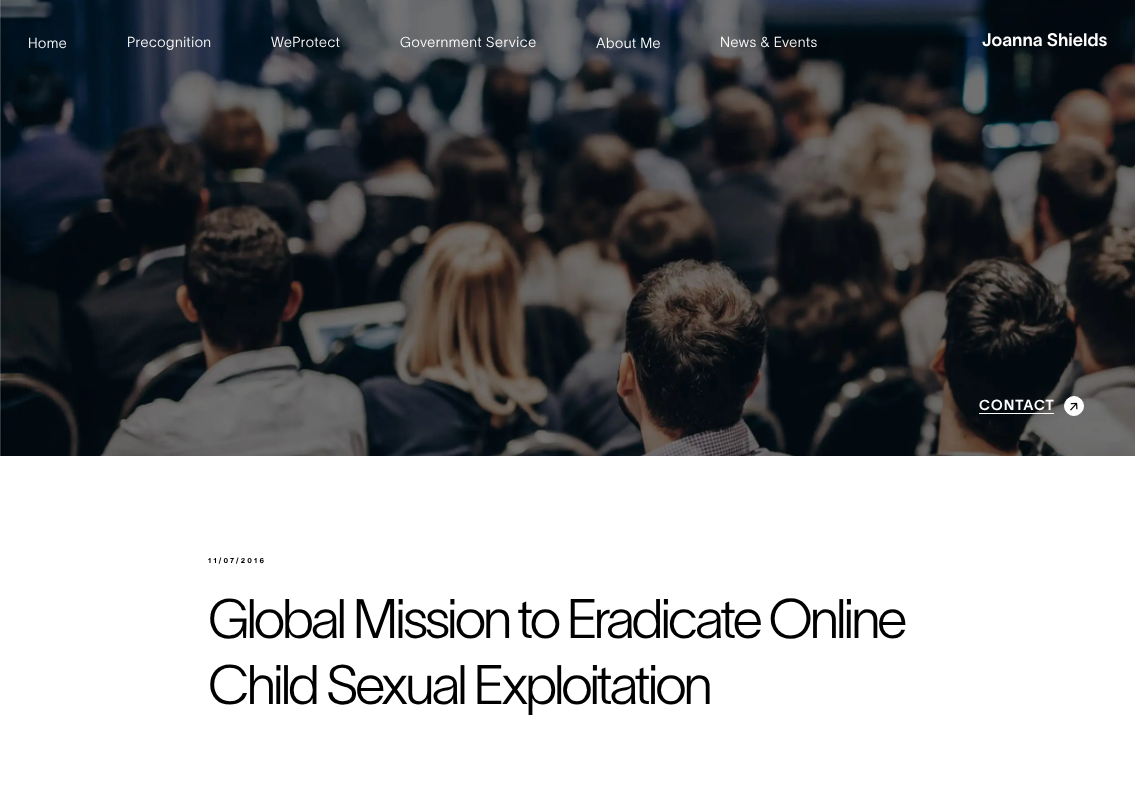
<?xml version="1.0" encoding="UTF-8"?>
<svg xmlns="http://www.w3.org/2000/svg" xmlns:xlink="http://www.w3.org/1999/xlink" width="1135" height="808">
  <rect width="100%" height="100%" fill="#ffffff" />
  <image x="0" y="0" width="1135" height="456" xlink:href="image1.png" />
  <rect x="979" y="413" width="75" height="1" fill="#ffffff" />
  <circle cx="1074" cy="406" r="9.5" fill="#ffffff" stroke="#ffffff" />
  <image x="1070" y="402" width="8" height="9" xlink:href="image2.png" />
  <text x="28" y="48" style="font-family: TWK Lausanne; font-size: 14.25px; font-weight: 200; letter-spacing: 0.5px; fill: #ffffff">Home</text>
  <text x="127" y="47" style="font-family: TWK Lausanne; font-size: 14.25px; font-weight: 200; letter-spacing: 0.5px; fill: #ffffff">Precognition</text>
  <text x="271" y="47" style="font-family: TWK Lausanne; font-size: 14.25px; font-weight: 200; letter-spacing: 0.5px; fill: #ffffff">WeProtect</text>
  <text x="400" y="47" style="font-family: TWK Lausanne; font-size: 14.25px; font-weight: 200; letter-spacing: 0.5px; fill: #ffffff">Government Service</text>
  <text x="596" y="48" style="font-family: TWK Lausanne; font-size: 14.25px; font-weight: 200; letter-spacing: 0.5px; fill: #ffffff">About Me</text>
  <text x="720" y="47" style="font-family: TWK Lausanne; font-size: 14.25px; font-weight: 200; letter-spacing: 0.5px; fill: #ffffff">News &amp; Events</text>
  <text x="982" y="46" style="font-family: TWK Lausanne; font-size: 17.75px; font-weight: 600; fill: #ffffff">Joanna Shields</text>
  <text x="979" y="410" style="font-family: TWK Lausanne; font-size: 14.25px; font-weight: 600; letter-spacing: 1px; fill: #ffffff">CONTACT</text>
  <text x="208" y="563" style="font-family: TWK Lausanne; font-size: 7px; font-weight: 800; letter-spacing: 2.25px; fill: #000000">11/07/2016</text>
  <text x="208" y="638" style="font-family: TWK Lausanne; font-size: 54.5px; font-weight: 200; letter-spacing: -3.4px; fill: #000000">Global Mission to Eradicate Online</text>
  <text x="208" y="704" style="font-family: TWK Lausanne; font-size: 54.5px; font-weight: 200; letter-spacing: -3.4px; fill: #000000">Child Sexual Exploitation</text>
</svg>
